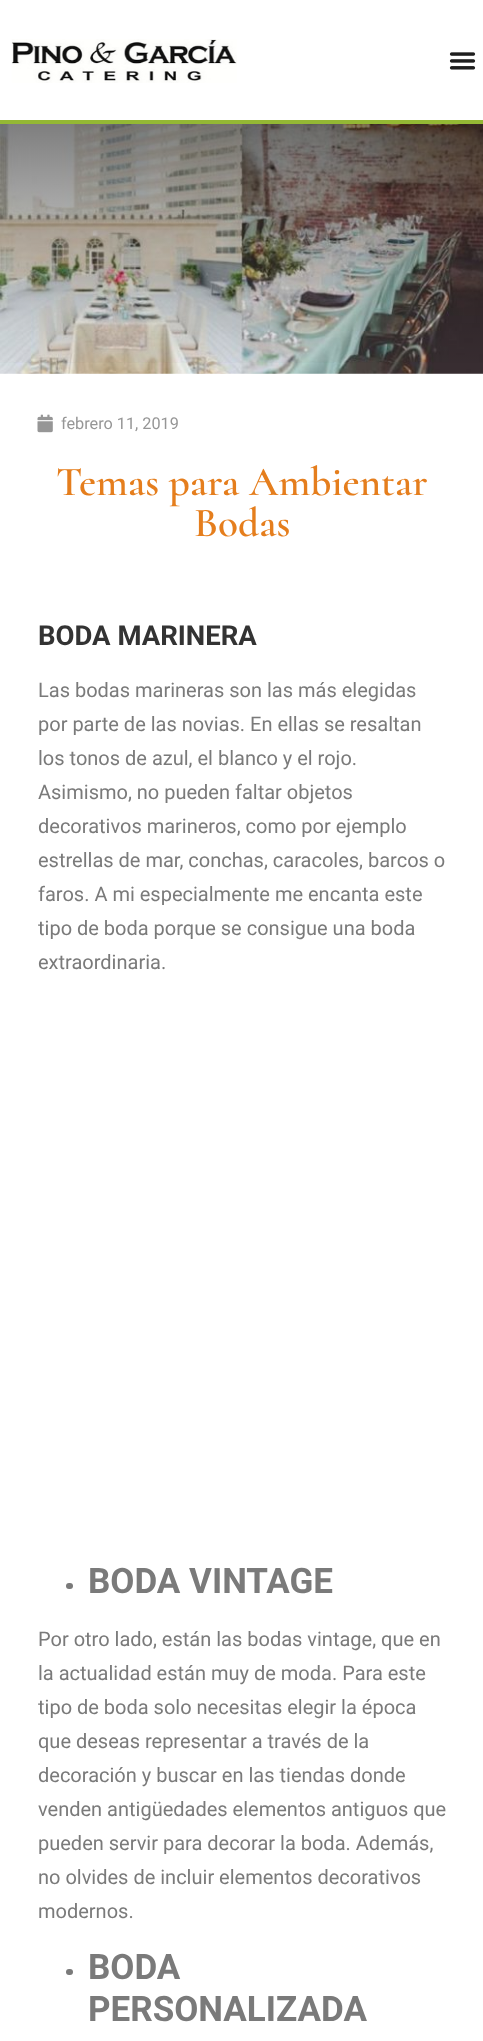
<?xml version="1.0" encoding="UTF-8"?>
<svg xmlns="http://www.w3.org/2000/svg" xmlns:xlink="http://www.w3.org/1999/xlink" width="483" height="2041">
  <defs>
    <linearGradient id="g1" gradientUnits="userSpaceOnUse" x1="242" y1="124" x2="242" y2="374"><stop offset="0" stop-color="#000000" stop-opacity="0.5" /><stop offset="1" stop-color="#000000" stop-opacity="0" /></linearGradient>
  </defs>
  <rect width="100%" height="100%" fill="#ffffff" />
  <rect y="120" width="483" height="4" fill="#94b834" />
  <image x="11" y="39" width="226" height="44" xlink:href="image1.png" />
  <image x="449" y="52" width="27" height="18" xlink:href="image2.png" />
  <image x="0" y="124" width="483" height="250" xlink:href="image3.png" />
  <rect y="124" width="483" height="239" fill="url(#g1)" />
  <image x="37" y="414" width="16" height="19" xlink:href="image4.png" />
  <rect x="66" y="1583" width="7" height="6" rx="3" fill="#7a7a7a" />
  <rect x="66" y="1969" width="7" height="6" rx="3" fill="#7a7a7a" />
  <text x="61" y="429" style="font-family: Roboto; font-size: 16.25px; fill: #969696">febrero 11, 2019</text>
  <text x="56" y="495" style="font-family: Cormorant; font-size: 41.25px; font-weight: 600; fill: #e57e1d">Temas para Ambientar</text>
  <text x="194" y="536" style="font-family: Cormorant; font-size: 41.25px; font-weight: 600; fill: #e57e1d">Bodas</text>
  <text x="38" y="645" style="font-family: Roboto; font-size: 27.5px; font-weight: bold; fill: #333333">BODA MARINERA</text>
  <text x="38" y="697" style="font-family: Roboto; font-size: 20px; fill: #7a7a7a">Las bodas marineras son las más elegidas</text>
  <text x="38" y="731" style="font-family: Roboto; font-size: 20px; fill: #7a7a7a">por parte de las novias. En ellas se resaltan</text>
  <text x="38" y="765" style="font-family: Roboto; font-size: 20px; fill: #7a7a7a">los tonos de azul, el blanco y el rojo.</text>
  <text x="38" y="799" style="font-family: Roboto; font-size: 20px; fill: #7a7a7a">Asimismo, no pueden faltar objetos</text>
  <text x="38" y="833" style="font-family: Roboto; font-size: 20px; fill: #7a7a7a">decorativos marineros, como por ejemplo</text>
  <text x="38" y="867" style="font-family: Roboto; font-size: 20px; fill: #7a7a7a">estrellas de mar, conchas, caracoles, barcos o</text>
  <text x="38" y="901" style="font-family: Roboto; font-size: 20px; fill: #7a7a7a">faros. A mi especialmente me encanta este</text>
  <text x="38" y="935" style="font-family: Roboto; font-size: 20px; fill: #7a7a7a">tipo de boda porque se consigue una boda</text>
  <text x="38" y="969" style="font-family: Roboto; font-size: 20px; fill: #7a7a7a">extraordinaria.</text>
  <text x="88" y="1593" style="font-family: Roboto; font-size: 35px; font-weight: bold; fill: #7a7a7a">BODA VINTAGE</text>
  <text x="38" y="1646" style="font-family: Roboto; font-size: 20px; fill: #7a7a7a">Por otro lado, están las bodas vintage, que en</text>
  <text x="38" y="1680" style="font-family: Roboto; font-size: 20px; fill: #7a7a7a">la actualidad están muy de moda. Para este</text>
  <text x="38" y="1714" style="font-family: Roboto; font-size: 20px; fill: #7a7a7a">tipo de boda solo necesitas elegir la época</text>
  <text x="38" y="1748" style="font-family: Roboto; font-size: 20px; fill: #7a7a7a">que deseas representar a través de la</text>
  <text x="38" y="1782" style="font-family: Roboto; font-size: 20px; fill: #7a7a7a">decoración y buscar en las tiendas donde</text>
  <text x="38" y="1816" style="font-family: Roboto; font-size: 20px; fill: #7a7a7a">venden antigüedades elementos antiguos que</text>
  <text x="38" y="1850" style="font-family: Roboto; font-size: 20px; fill: #7a7a7a">pueden servir para decorar la boda. Además,</text>
  <text x="38" y="1884" style="font-family: Roboto; font-size: 20px; fill: #7a7a7a">no olvides de incluir elementos decorativos</text>
  <text x="38" y="1918" style="font-family: Roboto; font-size: 20px; fill: #7a7a7a">modernos.</text>
  <text x="88" y="1979" style="font-family: Roboto; font-size: 35px; font-weight: bold; fill: #7a7a7a">BODA</text>
  <text x="88" y="2021" style="font-family: Roboto; font-size: 35px; font-weight: bold; fill: #7a7a7a">PERSONALIZADA</text>
</svg>
